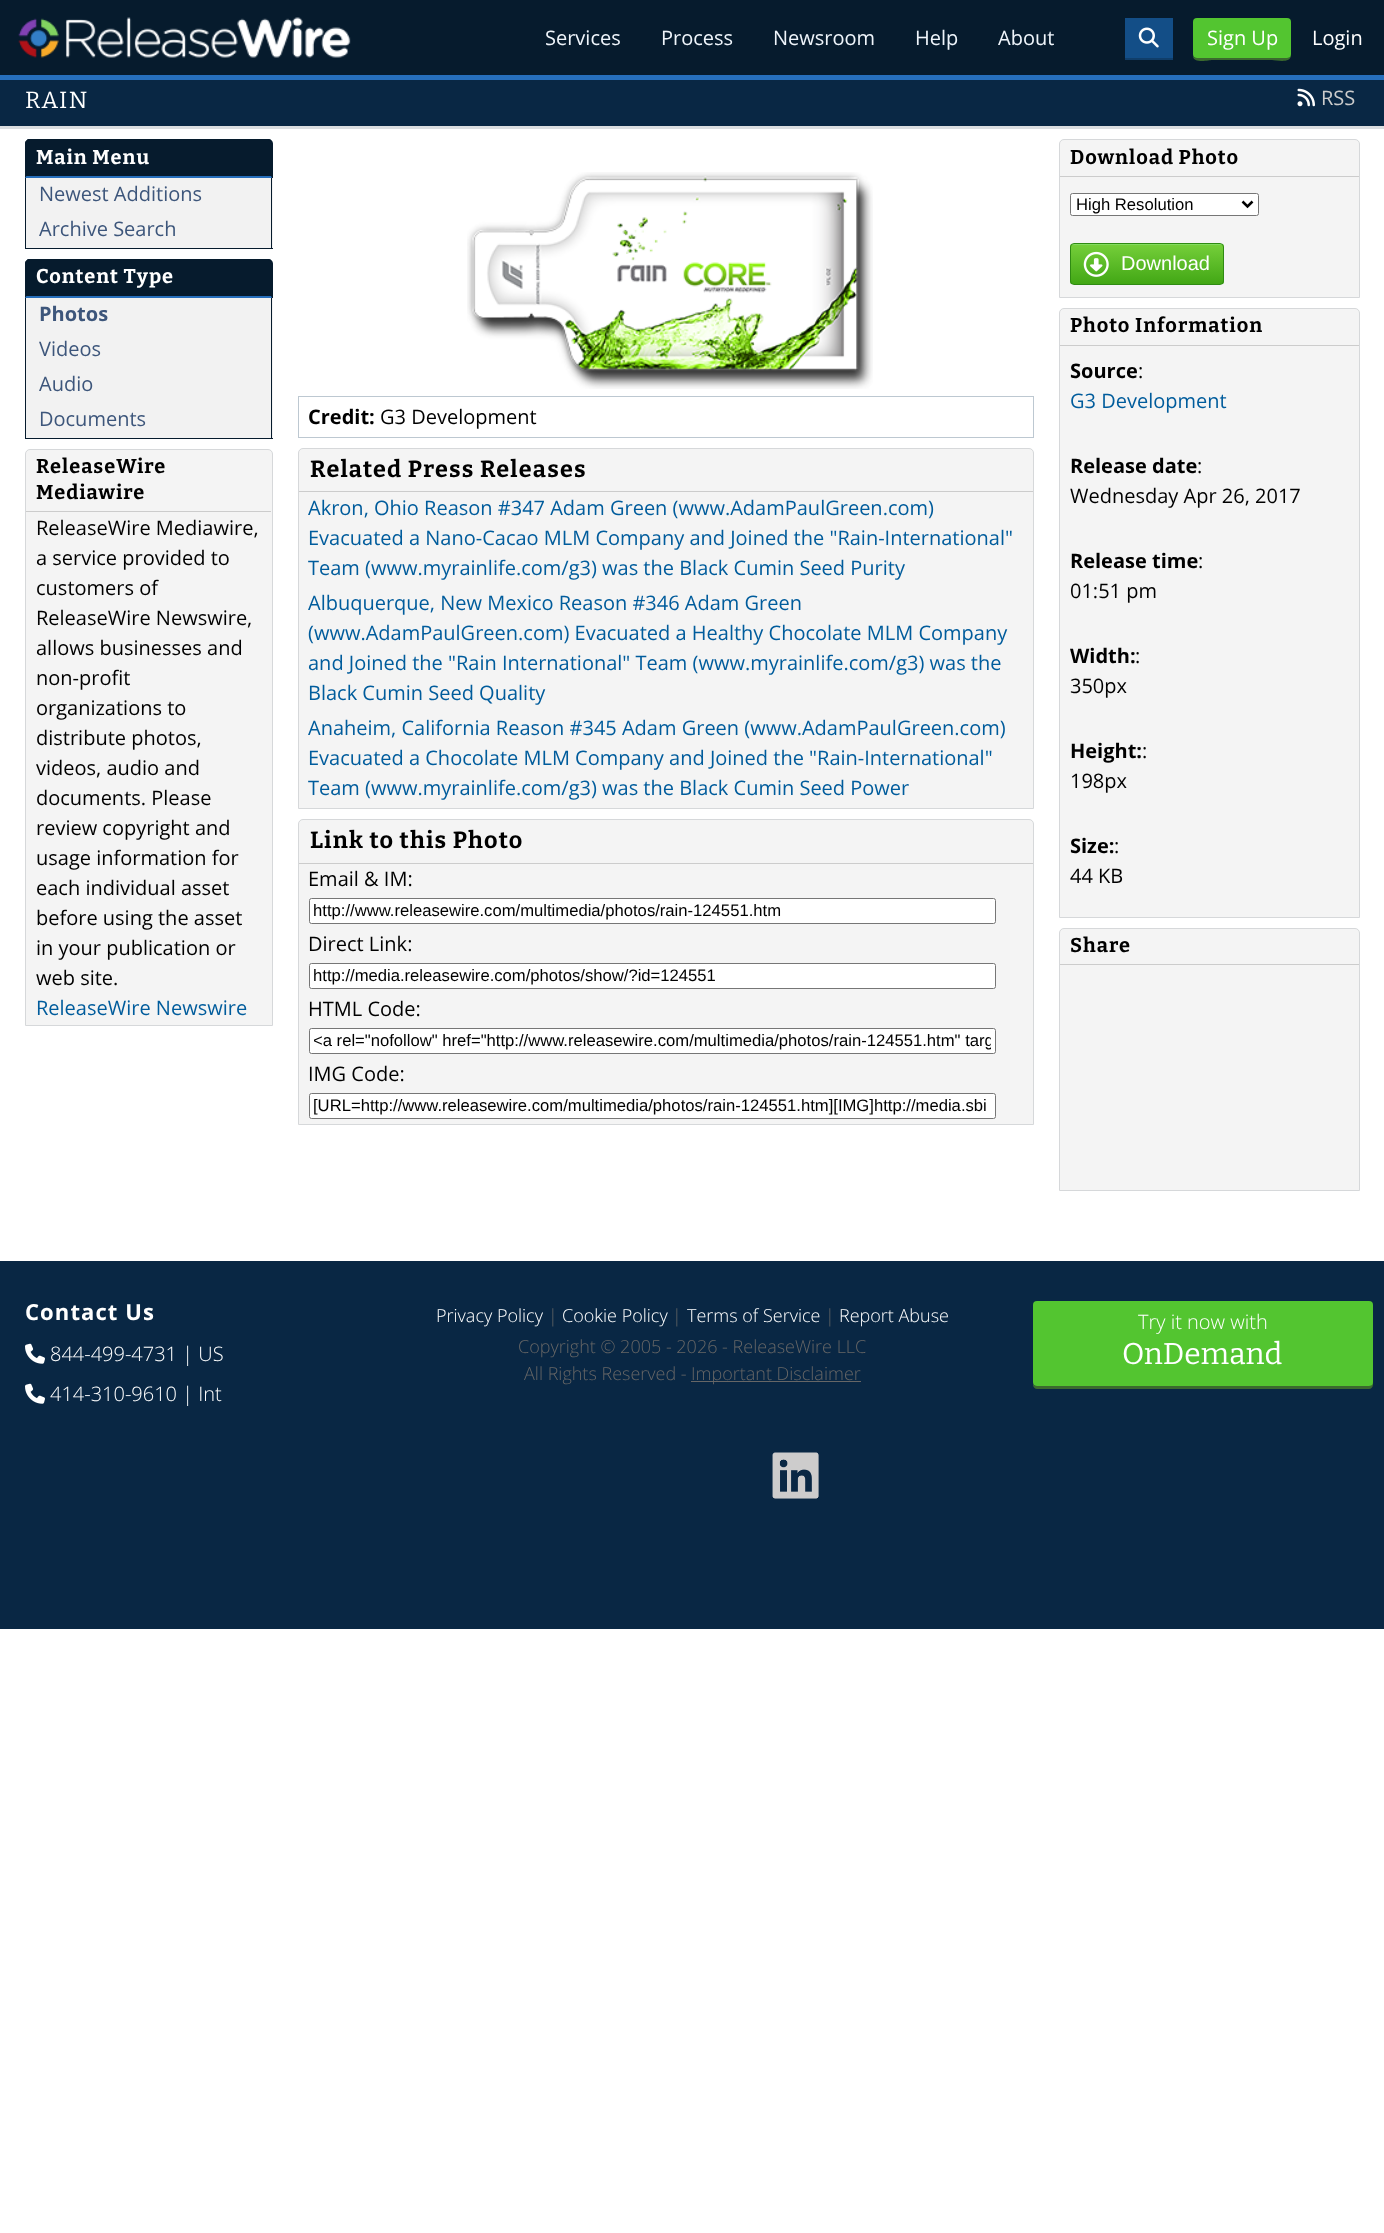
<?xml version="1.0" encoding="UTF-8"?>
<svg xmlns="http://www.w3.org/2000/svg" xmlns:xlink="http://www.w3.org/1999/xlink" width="1384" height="2233">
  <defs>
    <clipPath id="clip1"><rect x="1070" y="243" width="154" height="42" rx="4" /></clipPath>
    <linearGradient id="g1" gradientUnits="userSpaceOnUse" x1="1147" y1="244" x2="1147" y2="284"><stop offset="0" stop-color="#8de579" /><stop offset="0.03" stop-color="#74ce39" /><stop offset="1" stop-color="#42a715" /></linearGradient>
    <clipPath id="clip2"><rect x="314" y="1031" width="677" height="19" /></clipPath>
  </defs>
  <rect width="100%" height="100%" fill="#ffffff" />
  <rect width="1384" height="75" fill="#061b2d" />
  <rect y="75" width="1384" height="5" fill="#266fbc" />
  <image x="18" y="17" width="333" height="41" xlink:href="image1.png" />
  <path d="M 1125 58 v 2 h 48 v -40 h -1 v 38 z" fill="#103e6a" />
  <rect x="1125" y="18" width="48" height="40" fill="#134e87" />
  <image x="1138" y="27" width="21" height="21" xlink:href="image2.png" />
  <path d="M 1193 56 c 0 8 17 4 19 4 h 60 c 4 0 19 4 19 -5 c -1 2 -2 3 -3 3 h -92 c -1 0 -2 -1 -3 -2 z" fill="#3b6a2e" />
  <rect x="1193" y="18" width="98" height="40" rx="4" fill="#53c530" />
  <rect y="80" width="1384" height="46" fill="#092744" />
  <rect y="126" width="1384" height="3" fill="#dadde0" />
  <image x="1297" y="88" width="18" height="19" xlink:href="image3.png" />
  <path d="M 30 139 h 238 c 3 0 5 2 5 5 v 34 h -248 v -34 c 0 -3 2 -5 5 -5 z" fill="#061b2d" />
  <path d="M 30 139 c -1 0 -3 0 -3 1 v 1 l 3 -1 h 238 l 2 1 l 1 -1 c -1 0 -2 -1 -3 -1 z" fill="#061b2d" />
  <path d="M 272 177 v -33 c 0 -1.5 -0.5 -2.5 -1 -3.5 l -1 0.5 c 0.5 1 1 2 1 3 v 32 z" fill="#061b2d" />
  <path d="M 272 178 h -247 l 1 -2 h 245 z" fill="#266fbc" />
  <path d="M 25 177.5 l 1.5 -1.5 h -0.5 v -32 c 0 -1 0.5 -2 1.5 -3 l -1 -0.5 c -1 0.5 -1.5 2 -1.5 3.5 z" fill="#061b2d" />
  <rect x="26" y="178" width="247" height="70" fill="#f2f2f2" />
  <rect x="271" y="178" width="1" height="71" fill="#061b2d" />
  <rect x="25" y="248" width="248" height="1" fill="#061b2d" />
  <rect x="25" y="178" width="1" height="71" fill="#061b2d" />
  <path d="M 30 259 h 238 c 3 0 5 2 5 5 v 34 h -248 v -34 c 0 -3 2 -5 5 -5 z" fill="#061b2d" />
  <path d="M 30 259 c -1 0 -3 0 -3 1 v 1 l 3 -1 h 238 l 2 1 l 1 -1 c -1 0 -2 -1 -3 -1 z" fill="#061b2d" />
  <path d="M 272 297 v -33 c 0 -1.5 -0.5 -2.5 -1 -3.5 l -1 0.5 c 0.5 1 1 2 1 3 v 32 z" fill="#061b2d" />
  <path d="M 272 298 h -247 l 1 -2 h 245 z" fill="#266fbc" />
  <path d="M 25 297.5 l 1.5 -1.5 h -0.5 v -32 c 0 -1 0.5 -2 1.5 -3 l -1 -0.5 c -1 0.5 -1.5 2 -1.5 3.5 z" fill="#061b2d" />
  <rect x="26" y="298" width="247" height="140" fill="#f2f2f2" />
  <rect x="271" y="298" width="1" height="141" fill="#061b2d" />
  <rect x="25" y="438" width="248" height="1" fill="#061b2d" />
  <rect x="25" y="298" width="1" height="141" fill="#061b2d" />
  <path d="M 30 449.5 h 238 c 2.5 0 4.5 2 4.5 4.5 v 571.5 h -247 v -571.5 c 0 -2.5 2 -4.5 4.5 -4.5 z" fill="#f4f4f4" stroke="#d6d8da" />
  <rect x="26" y="511" width="245" height="1" fill="#cccccc" />
  <image x="467" y="172" width="406" height="217" xlink:href="image4.png" />
  <rect x="298.5" y="396.5" width="735" height="41" fill="none" stroke="#bdc8d1" />
  <path d="M 303 448.5 h 726 c 2.5 0 4.5 2 4.5 4.5 v 355.5 h -735 v -355.5 c 0 -2.5 2 -4.5 4.5 -4.5 z" fill="#f4f4f4" stroke="#d6d8da" />
  <rect x="299" y="491" width="734" height="1" fill="#cccccc" />
  <path d="M 303 819.5 h 726 c 2.5 0 4.5 2 4.5 4.5 v 300.5 h -735 v -300.5 c 0 -2.5 2 -4.5 4.5 -4.5 z" fill="#f4f4f4" stroke="#d6d8da" />
  <rect x="299" y="863" width="734" height="1" fill="#cccccc" />
  <rect x="309.5" y="898.5" width="686" height="25" rx="2" fill="#ffffff" stroke="#767676" />
  <rect x="309.5" y="963.5" width="686" height="25" rx="2" fill="#ffffff" stroke="#767676" />
  <rect x="309.5" y="1028.5" width="686" height="25" rx="2" fill="#ffffff" stroke="#767676" />
  <rect x="309.5" y="1093.5" width="686" height="25" rx="2" fill="#ffffff" stroke="#767676" />
  <path d="M 1064 139.5 h 291 c 2.5 0 4.5 2 4.5 4.5 v 153.5 h -300 v -153.5 c 0 -2.5 2 -4.5 4.5 -4.5 z" fill="#f4f4f4" stroke="#d6d8da" />
  <rect x="1060" y="176" width="299" height="1" fill="#cccccc" />
  <rect x="1070.5" y="193.5" width="188" height="22" rx="2" fill="#ffffff" stroke="#767676" />
  <path d="M 1242.5 201.5 l 5 5 l 5 -5" fill="none" stroke="#000000" stroke-width="2.5" />
  <g clip-path="url(#clip1)">
    <rect x="1070" y="244" width="154" height="40" fill="url(#g1)" />
  </g>
  <rect x="1070.5" y="243.5" width="153" height="41" rx="3.5" fill="none" stroke="#2f8b13" />
  <image x="1083" y="251" width="26" height="26" xlink:href="image5.png" />
  <path d="M 1064 308.5 h 291 c 2.5 0 4.5 2 4.5 4.5 v 604.5 h -300 v -604.5 c 0 -2.5 2 -4.5 4.5 -4.5 z" fill="#f4f4f4" stroke="#d6d8da" />
  <rect x="1060" y="345" width="299" height="1" fill="#cccccc" />
  <path d="M 1064 928.5 h 291 c 2.5 0 4.5 2 4.5 4.5 v 257.5 h -300 v -257.5 c 0 -2.5 2 -4.5 4.5 -4.5 z" fill="#f4f4f4" stroke="#d6d8da" />
  <rect x="1060" y="964" width="299" height="1" fill="#cccccc" />
  <rect y="1261" width="1384" height="368" fill="#092744" />
  <image x="25" y="1343" width="20" height="21" xlink:href="image6.png" />
  <image x="25" y="1383" width="20" height="21" xlink:href="image6.png" />
  <rect x="691" y="1381" width="170" height="1" fill="#666666" />
  <image x="772" y="1452" width="47" height="47" xlink:href="image7.png" />
  <path d="M 1033 1384 v 1 c 0 2 2 4 4 4 h 332 c 2 0 4 -2 4 -4 v -77 l -1 -2 v 76 c 0 3 -1 4 -3 4 h -333 c -1 0 -2 -1 -3 -2 z" fill="#3b6a2e" />
  <rect x="1033" y="1301" width="340" height="85" rx="4" fill="#53c530" />
  <text x="545" y="45" style="font-family: Open Sans; font-size: 20px; fill: #eff5fb">Services</text>
  <text x="661" y="45" style="font-family: Open Sans; font-size: 20px; fill: #eff5fb">Process</text>
  <text x="773" y="45" style="font-family: Open Sans; font-size: 20px; fill: #eff5fb">Newsroom</text>
  <text x="915" y="45" style="font-family: Open Sans; font-size: 20px; fill: #eff5fb">Help</text>
  <text x="998" y="45" style="font-family: Open Sans; font-size: 20px; fill: #eff5fb">About</text>
  <text x="1207" y="45" style="font-family: Open Sans; font-size: 20px; fill: #ffffff">Sign Up</text>
  <text x="1312" y="45" style="font-family: Open Sans; font-size: 20px; fill: #ffffff">Login</text>
  <text x="25" y="108" style="font-family: Bitter; font-size: 23.4px; letter-spacing: 1.5px; fill: #ffffff">RAIN</text>
  <text x="1321" y="105" style="font-family: Open Sans; font-size: 20px; fill: #cccccc">RSS</text>
  <text x="36" y="164" style="font-family: Bitter; font-size: 20px; font-weight: bold; letter-spacing: 1px; fill: #ffffff">Main Menu</text>
  <text x="39" y="201" style="font-family: Open Sans; font-size: 20px; fill: #3d567b">Newest Additions</text>
  <text x="39" y="236" style="font-family: Open Sans; font-size: 20px; fill: #3d567b">Archive Search</text>
  <text x="36" y="283" style="font-family: Bitter; font-size: 20px; font-weight: bold; letter-spacing: 1px; fill: #ffffff">Content Type</text>
  <text x="39" y="321" style="font-family: Open Sans; font-size: 20px; font-weight: bold; fill: #3d567b">Photos</text>
  <text x="39" y="356" style="font-family: Open Sans; font-size: 20px; fill: #3d567b">Videos</text>
  <text x="39" y="391" style="font-family: Open Sans; font-size: 20px; fill: #3d567b">Audio</text>
  <text x="39" y="426" style="font-family: Open Sans; font-size: 20px; fill: #3d567b">Documents</text>
  <text x="36" y="473" style="font-family: Bitter; font-size: 20px; font-weight: bold; letter-spacing: 1px; fill: #000000">ReleaseWire</text>
  <text x="36" y="499" style="font-family: Bitter; font-size: 20px; font-weight: bold; letter-spacing: 1px; fill: #000000">Mediawire</text>
  <text x="36" y="535" style="font-family: Open Sans; font-size: 20px; fill: #000000">ReleaseWire Mediawire,</text>
  <text x="36" y="565" style="font-family: Open Sans; font-size: 20px; fill: #000000">a service provided to</text>
  <text x="36" y="595" style="font-family: Open Sans; font-size: 20px; fill: #000000">customers of</text>
  <text x="36" y="625" style="font-family: Open Sans; font-size: 20px; fill: #000000">ReleaseWire Newswire,</text>
  <text x="36" y="655" style="font-family: Open Sans; font-size: 20px; fill: #000000">allows businesses and</text>
  <text x="36" y="685" style="font-family: Open Sans; font-size: 20px; fill: #000000">non-profit</text>
  <text x="36" y="715" style="font-family: Open Sans; font-size: 20px; fill: #000000">organizations to</text>
  <text x="36" y="745" style="font-family: Open Sans; font-size: 20px; fill: #000000">distribute photos,</text>
  <text x="36" y="775" style="font-family: Open Sans; font-size: 20px; fill: #000000">videos, audio and</text>
  <text x="36" y="805" style="font-family: Open Sans; font-size: 20px; fill: #000000">documents. Please</text>
  <text x="36" y="835" style="font-family: Open Sans; font-size: 20px; fill: #000000">review copyright and</text>
  <text x="36" y="865" style="font-family: Open Sans; font-size: 20px; fill: #000000">usage information for</text>
  <text x="36" y="895" style="font-family: Open Sans; font-size: 20px; fill: #000000">each individual asset</text>
  <text x="36" y="925" style="font-family: Open Sans; font-size: 20px; fill: #000000">before using the asset</text>
  <text x="36" y="955" style="font-family: Open Sans; font-size: 20px; fill: #000000">in your publication or</text>
  <text x="36" y="985" style="font-family: Open Sans; font-size: 20px; fill: #000000">web site.</text>
  <text x="36" y="1015" style="font-family: Open Sans; font-size: 20px; fill: #005c9c">ReleaseWire Newswire</text>
  <text x="308" y="424" style="font-family: Open Sans; font-size: 20px; font-weight: bold; fill: #000000">Credit:</text>
  <text x="380" y="424" style="font-family: Open Sans; font-size: 20px; fill: #000000">G3 Development</text>
  <text x="310" y="477" style="font-family: Bitter; font-size: 23.4px; font-weight: bold; letter-spacing: 1.2px; fill: #000000">Related Press Releases</text>
  <text x="308" y="515" style="font-family: Open Sans; font-size: 20px; fill: #005c9c">Akron, Ohio Reason #347 Adam Green (www.AdamPaulGreen.com)</text>
  <text x="308" y="545" style="font-family: Open Sans; font-size: 20px; fill: #005c9c">Evacuated a Nano-Cacao MLM Company and Joined the "Rain-International"</text>
  <text x="308" y="575" style="font-family: Open Sans; font-size: 20px; fill: #005c9c">Team (www.myrainlife.com/g3) was the Black Cumin Seed Purity</text>
  <text x="308" y="610" style="font-family: Open Sans; font-size: 20px; fill: #005c9c">Albuquerque, New Mexico Reason #346 Adam Green</text>
  <text x="308" y="640" style="font-family: Open Sans; font-size: 20px; fill: #005c9c">(www.AdamPaulGreen.com) Evacuated a Healthy Chocolate MLM Company</text>
  <text x="308" y="670" style="font-family: Open Sans; font-size: 20px; fill: #005c9c">and Joined the "Rain International" Team (www.myrainlife.com/g3) was the</text>
  <text x="308" y="700" style="font-family: Open Sans; font-size: 20px; fill: #005c9c">Black Cumin Seed Quality</text>
  <text x="308" y="735" style="font-family: Open Sans; font-size: 20px; fill: #005c9c">Anaheim, California Reason #345 Adam Green (www.AdamPaulGreen.com)</text>
  <text x="308" y="765" style="font-family: Open Sans; font-size: 20px; fill: #005c9c">Evacuated a Chocolate MLM Company and Joined the "Rain-International"</text>
  <text x="308" y="795" style="font-family: Open Sans; font-size: 20px; fill: #005c9c">Team (www.myrainlife.com/g3) was the Black Cumin Seed Power</text>
  <text x="310" y="848" style="font-family: Bitter; font-size: 23.4px; font-weight: bold; letter-spacing: 1.2px; fill: #000000">Link to this Photo</text>
  <text x="308" y="886" style="font-family: Open Sans; font-size: 20px; fill: #000000">Email &amp; IM:</text>
  <text x="313" y="916" style="font-family: Liberation Sans; font-size: 16.65px; fill: #000000">http://www.releasewire.com/multimedia/photos/rain-124551.htm</text>
  <text x="308" y="951" style="font-family: Open Sans; font-size: 20px; fill: #000000">Direct Link:</text>
  <text x="313" y="981" style="font-family: Liberation Sans; font-size: 16.65px; fill: #000000">http://media.releasewire.com/photos/show/?id=124551</text>
  <text x="308" y="1016" style="font-family: Open Sans; font-size: 20px; fill: #000000">HTML Code:</text>
  <g clip-path="url(#clip2)">
    <text x="313" y="1046" style="font-family: Liberation Sans; font-size: 16.65px; fill: #000000">&lt;a rel="nofollow" href="http://www.releasewire.com/multimedia/photos/rain-124551.htm" targ</text>
  </g>
  <text x="308" y="1081" style="font-family: Open Sans; font-size: 20px; fill: #000000">IMG Code:</text>
  <text x="313" y="1111" style="font-family: Liberation Sans; font-size: 16.65px; fill: #000000">[URL=http://www.releasewire.com/multimedia/photos/rain-124551.htm][IMG]http://media.sbi</text>
  <text x="1070" y="164" style="font-family: Bitter; font-size: 20px; font-weight: bold; letter-spacing: 1px; fill: #000000">Download Photo</text>
  <text x="1076" y="210" style="font-family: Liberation Sans; font-size: 16.65px; fill: #000000">High Resolution</text>
  <text x="1121" y="270" style="font-family: Liberation Sans; font-size: 20px; fill: #ffffff">Download</text>
  <text x="1070" y="332" style="font-family: Bitter; font-size: 20px; font-weight: bold; letter-spacing: 1px; fill: #000000">Photo Information</text>
  <text x="1070" y="378" style="font-family: Open Sans; font-size: 20px; font-weight: bold; fill: #000000">Source</text>
  <text x="1138" y="378" style="font-family: Open Sans; font-size: 20px; fill: #000000">:</text>
  <text x="1070" y="408" style="font-family: Open Sans; font-size: 20px; fill: #005c9c">G3 Development</text>
  <text x="1070" y="473" style="font-family: Open Sans; font-size: 20px; font-weight: bold; fill: #000000">Release date</text>
  <text x="1197" y="473" style="font-family: Open Sans; font-size: 20px; fill: #000000">:</text>
  <text x="1070" y="503" style="font-family: Open Sans; font-size: 20px; fill: #000000">Wednesday Apr 26, 2017</text>
  <text x="1070" y="568" style="font-family: Open Sans; font-size: 20px; font-weight: bold; fill: #000000">Release time</text>
  <text x="1198" y="568" style="font-family: Open Sans; font-size: 20px; fill: #000000">:</text>
  <text x="1070" y="598" style="font-family: Open Sans; font-size: 20px; fill: #000000">01:51 pm</text>
  <text x="1070" y="663" style="font-family: Open Sans; font-size: 20px; font-weight: bold; fill: #000000">Width:</text>
  <text x="1135" y="663" style="font-family: Open Sans; font-size: 20px; fill: #000000">:</text>
  <text x="1070" y="693" style="font-family: Open Sans; font-size: 20px; fill: #000000">350px</text>
  <text x="1070" y="758" style="font-family: Open Sans; font-size: 20px; font-weight: bold; fill: #000000">Height:</text>
  <text x="1142" y="758" style="font-family: Open Sans; font-size: 20px; fill: #000000">:</text>
  <text x="1070" y="788" style="font-family: Open Sans; font-size: 20px; fill: #000000">198px</text>
  <text x="1070" y="853" style="font-family: Open Sans; font-size: 20px; font-weight: bold; fill: #000000">Size:</text>
  <text x="1114" y="853" style="font-family: Open Sans; font-size: 20px; fill: #000000">:</text>
  <text x="1070" y="883" style="font-family: Open Sans; font-size: 20px; fill: #000000">44 KB</text>
  <text x="1070" y="952" style="font-family: Bitter; font-size: 20px; font-weight: bold; letter-spacing: 1px; fill: #000000">Share</text>
  <text x="25" y="1320" style="font-family: Open Sans; font-size: 22px; font-weight: bold; letter-spacing: 1.1px; fill: #ffffff">Contact Us</text>
  <text x="50" y="1361" style="font-family: Open Sans; font-size: 20px; font-weight: 300; fill: #ffffff">844-499-4731 | US</text>
  <text x="50" y="1401" style="font-family: Open Sans; font-size: 20px; font-weight: 300; fill: #ffffff">414-310-9610 | Int</text>
  <text x="436" y="1322" style="font-family: Open Sans; font-size: 18px; font-weight: 300; fill: #ffffff">Privacy Policy</text>
  <text x="548" y="1322" style="font-family: Open Sans; font-size: 18px; font-weight: 300; fill: #666666">|</text>
  <text x="562" y="1322" style="font-family: Open Sans; font-size: 18px; font-weight: 300; fill: #ffffff">Cookie Policy</text>
  <text x="672" y="1322" style="font-family: Open Sans; font-size: 18px; font-weight: 300; fill: #666666">|</text>
  <text x="687" y="1322" style="font-family: Open Sans; font-size: 18px; font-weight: 300; fill: #ffffff">Terms of Service</text>
  <text x="825" y="1322" style="font-family: Open Sans; font-size: 18px; font-weight: 300; fill: #666666">|</text>
  <text x="839" y="1322" style="font-family: Open Sans; font-size: 18px; font-weight: 300; fill: #ffffff">Report Abuse</text>
  <text x="518" y="1353" style="font-family: Open Sans; font-size: 18px; font-weight: 300; fill: #666666">Copyright © 2005 - 2026 - ReleaseWire LLC</text>
  <text x="524" y="1380" style="font-family: Open Sans; font-size: 18px; font-weight: 300; fill: #666666">All Rights Reserved -</text>
  <text x="691" y="1380" style="font-family: Open Sans; font-size: 18px; font-weight: 300; fill: #666666">Important Disclaimer</text>
  <text x="1138" y="1329" style="font-family: Open Sans; font-size: 20px; font-weight: 300; fill: #ffffff">Try it now with</text>
  <text x="1122" y="1364" style="font-family: Bitter; font-size: 30px; fill: #ffffff">OnDemand</text>
</svg>
